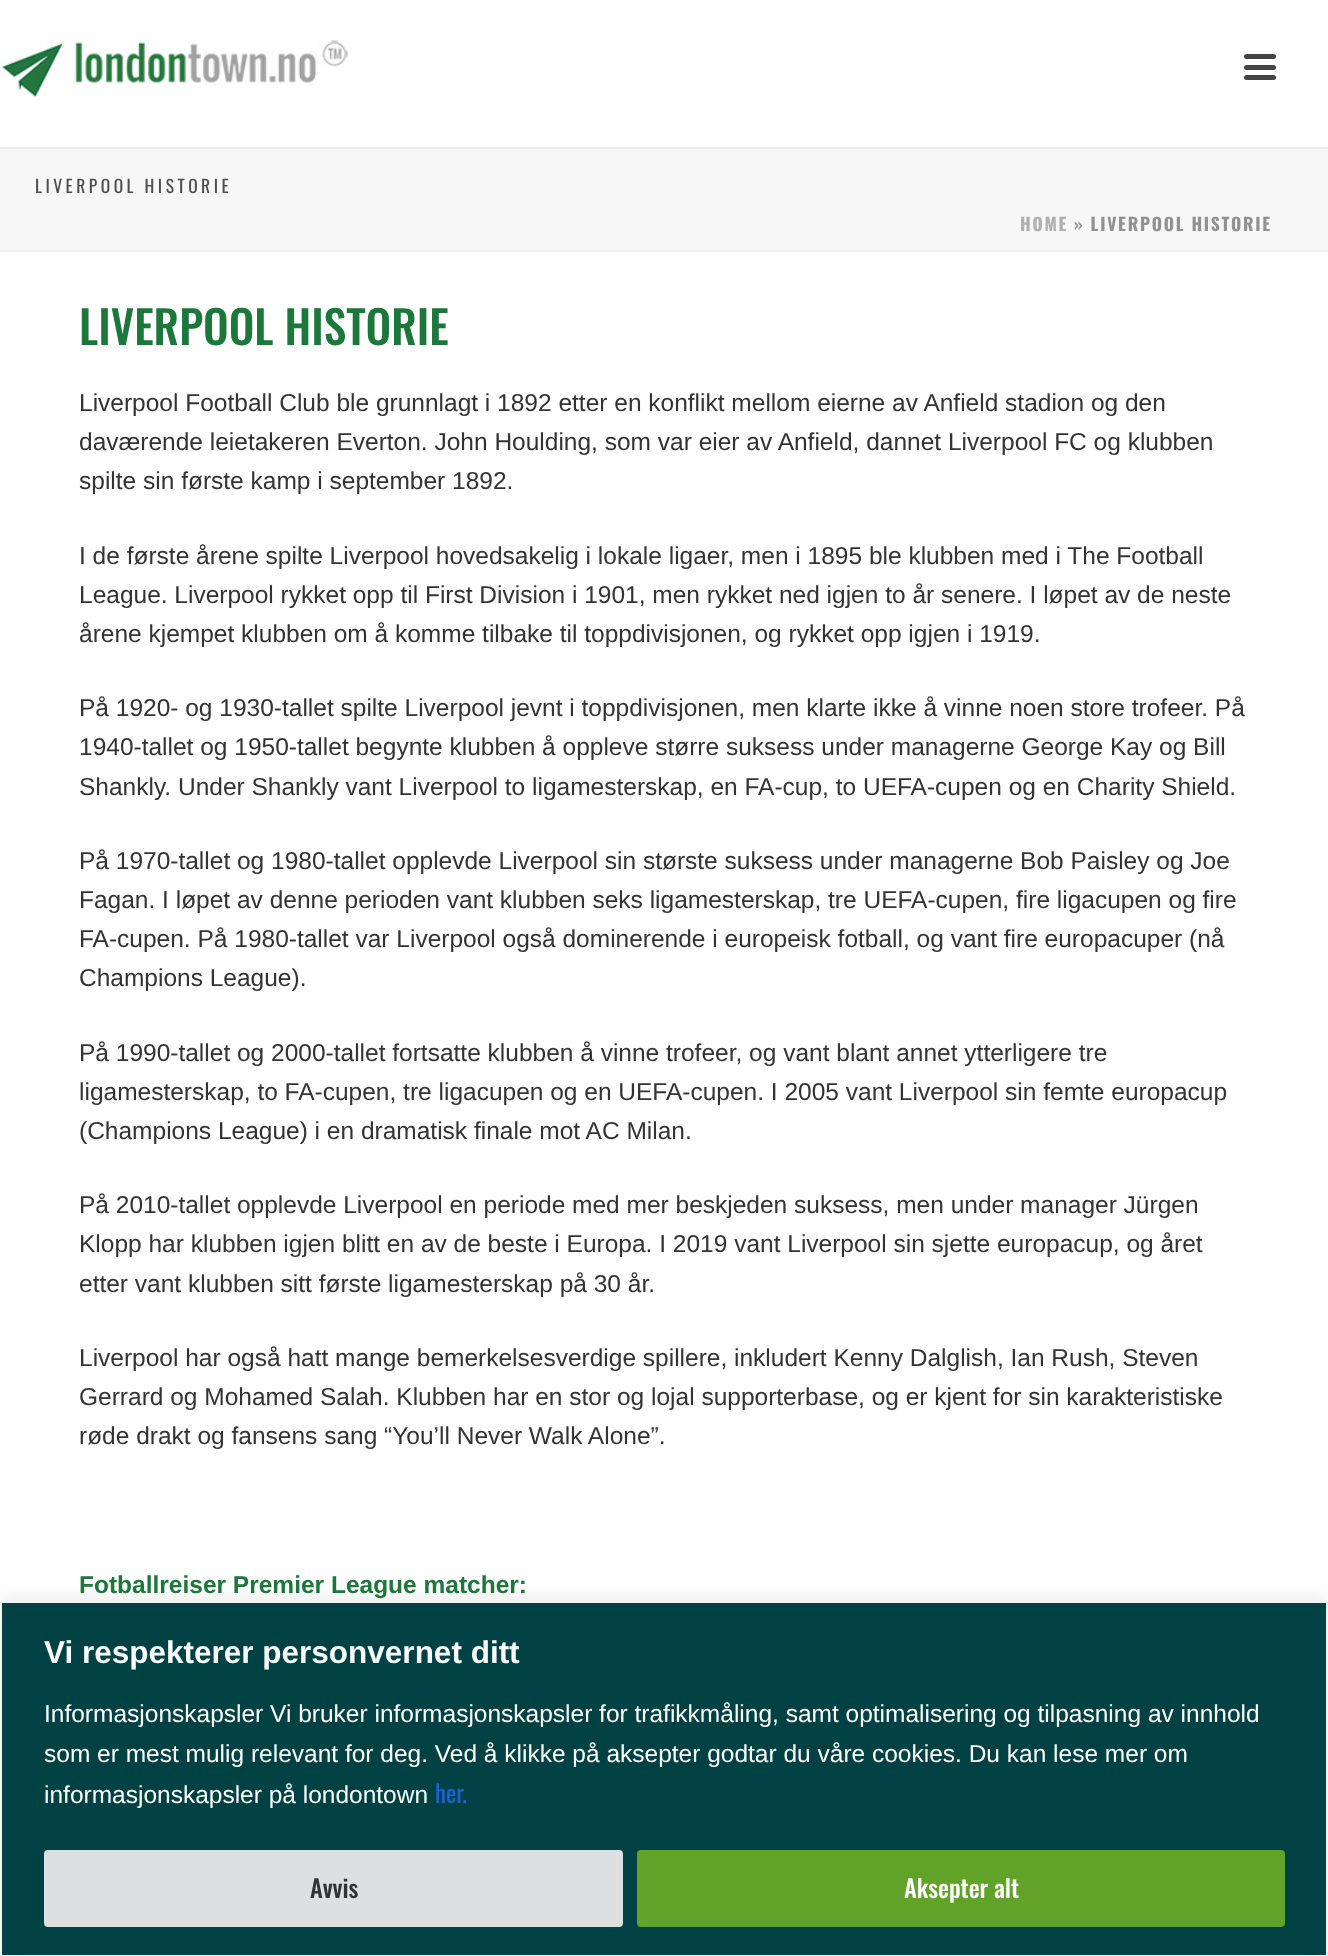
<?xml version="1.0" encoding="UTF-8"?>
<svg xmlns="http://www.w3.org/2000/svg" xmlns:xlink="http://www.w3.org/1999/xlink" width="1328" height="1956">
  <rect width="100%" height="100%" fill="#ffffff" />
  <rect y="149" width="1328" height="101" fill="#f7f7f7" />
  <rect y="250" width="1328" height="2" fill="#ededed" />
  <rect y="147" width="1328" height="2" fill="#ededed" />
  <image x="0" y="39" width="348" height="58" xlink:href="image1.png" />
  <rect x="1244" y="54" width="32" height="5" rx="2.5" fill="#444444" />
  <rect x="1244" y="65" width="32" height="5" rx="2.5" fill="#444444" />
  <rect x="1244" y="75" width="32" height="5" rx="2.5" fill="#444444" />
  <rect y="1600" width="1328" height="355" fill="#acabab" fill-opacity="0.3" filter="blur(9px)" />
  <rect x="1" y="1602" width="1326" height="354" fill="#004244" stroke="#f4f4f4" stroke-width="2" />
  <rect x="46" y="1852" width="575" height="73" rx="2" fill="#dedfe0" stroke="#dedfe0" stroke-width="4" />
  <rect x="639" y="1852" width="644" height="73" rx="2" fill="#61a229" stroke="#61a229" stroke-width="4" />
  <text x="35" y="193" style="font-family: Oswald; font-size: 17.5px; letter-spacing: 3.5px; fill: #4d4d4d">LIVERPOOL HISTORIE</text>
  <text x="1020" y="231" style="font-family: Oswald; font-size: 17.5px; font-weight: bold; letter-spacing: 1.75px; fill: #afafaf">HOME</text>
  <text x="1074" y="231" style="font-family: Oswald; font-size: 17.5px; font-weight: bold; letter-spacing: 1.75px; fill: #919191">» LIVERPOOL HISTORIE</text>
  <text x="79" y="345" style="font-family: Oswald; font-size: 45.5px; font-weight: 500; fill: #1c773b">LIVERPOOL HISTORIE</text>
  <text x="79" y="411" style="font-family: Liberation Sans; font-size: 24.5px; fill: #333333">Liverpool Football Club ble grunnlagt i 1892 etter en konflikt mellom eierne av Anfield stadion og den</text>
  <text x="79" y="450" style="font-family: Liberation Sans; font-size: 24.5px; fill: #333333">daværende leietakeren Everton. John Houlding, som var eier av Anfield, dannet Liverpool FC og klubben</text>
  <text x="79" y="489" style="font-family: Liberation Sans; font-size: 24.5px; fill: #333333">spilte sin første kamp i september 1892.</text>
  <text x="79" y="564" style="font-family: Liberation Sans; font-size: 24.5px; fill: #333333">I de første årene spilte Liverpool hovedsakelig i lokale ligaer, men i 1895 ble klubben med i The Football</text>
  <text x="79" y="603" style="font-family: Liberation Sans; font-size: 24.5px; fill: #333333">League. Liverpool rykket opp til First Division i 1901, men rykket ned igjen to år senere. I løpet av de neste</text>
  <text x="79" y="642" style="font-family: Liberation Sans; font-size: 24.5px; fill: #333333">årene kjempet klubben om å komme tilbake til toppdivisjonen, og rykket opp igjen i 1919.</text>
  <text x="79" y="716" style="font-family: Liberation Sans; font-size: 24.5px; fill: #333333">På 1920- og 1930-tallet spilte Liverpool jevnt i toppdivisjonen, men klarte ikke å vinne noen store trofeer. På</text>
  <text x="79" y="755" style="font-family: Liberation Sans; font-size: 24.5px; fill: #333333">1940-tallet og 1950-tallet begynte klubben å oppleve større suksess under managerne George Kay og Bill</text>
  <text x="79" y="795" style="font-family: Liberation Sans; font-size: 24.5px; fill: #333333">Shankly. Under Shankly vant Liverpool to ligamesterskap, en FA-cup, to UEFA-cupen og en Charity Shield.</text>
  <text x="79" y="869" style="font-family: Liberation Sans; font-size: 24.5px; fill: #333333">På 1970-tallet og 1980-tallet opplevde Liverpool sin største suksess under managerne Bob Paisley og Joe</text>
  <text x="79" y="908" style="font-family: Liberation Sans; font-size: 24.5px; fill: #333333">Fagan. I løpet av denne perioden vant klubben seks ligamesterskap, tre UEFA-cupen, fire ligacupen og fire</text>
  <text x="79" y="947" style="font-family: Liberation Sans; font-size: 24.5px; fill: #333333">FA-cupen. På 1980-tallet var Liverpool også dominerende i europeisk fotball, og vant fire europacuper (nå</text>
  <text x="79" y="986" style="font-family: Liberation Sans; font-size: 24.5px; fill: #333333">Champions League).</text>
  <text x="79" y="1061" style="font-family: Liberation Sans; font-size: 24.5px; fill: #333333">På 1990-tallet og 2000-tallet fortsatte klubben å vinne trofeer, og vant blant annet ytterligere tre</text>
  <text x="79" y="1100" style="font-family: Liberation Sans; font-size: 24.5px; fill: #333333">ligamesterskap, to FA-cupen, tre ligacupen og en UEFA-cupen. I 2005 vant Liverpool sin femte europacup</text>
  <text x="79" y="1139" style="font-family: Liberation Sans; font-size: 24.5px; fill: #333333">(Champions League) i en dramatisk finale mot AC Milan.</text>
  <text x="79" y="1213" style="font-family: Liberation Sans; font-size: 24.5px; fill: #333333">På 2010-tallet opplevde Liverpool en periode med mer beskjeden suksess, men under manager Jürgen</text>
  <text x="79" y="1252" style="font-family: Liberation Sans; font-size: 24.5px; fill: #333333">Klopp har klubben igjen blitt en av de beste i Europa. I 2019 vant Liverpool sin sjette europacup, og året</text>
  <text x="79" y="1292" style="font-family: Liberation Sans; font-size: 24.5px; fill: #333333">etter vant klubben sitt første ligamesterskap på 30 år.</text>
  <text x="79" y="1366" style="font-family: Liberation Sans; font-size: 24.5px; fill: #333333">Liverpool har også hatt mange bemerkelsesverdige spillere, inkludert Kenny Dalglish, Ian Rush, Steven</text>
  <text x="79" y="1405" style="font-family: Liberation Sans; font-size: 24.5px; fill: #333333">Gerrard og Mohamed Salah. Klubben har en stor og lojal supporterbase, og er kjent for sin karakteristiske</text>
  <text x="79" y="1444" style="font-family: Liberation Sans; font-size: 24.5px; fill: #333333">røde drakt og fansens sang “You’ll Never Walk Alone”.</text>
  <text x="79" y="1593" style="font-family: Liberation Sans; font-size: 24.5px; font-weight: bold; fill: #1c773b">Fotballreiser Premier League matcher:</text>
  <text x="44" y="1663" style="font-family: Liberation Sans; font-size: 31.5px; font-weight: bold; fill: #ffffff">Vi respekterer personvernet ditt</text>
  <text x="44" y="1722" style="font-family: Liberation Sans; font-size: 24.5px; fill: #ffffff">Informasjonskapsler Vi bruker informasjonskapsler for trafikkmåling, samt optimalisering og tilpasning av innhold</text>
  <text x="44" y="1762" style="font-family: Liberation Sans; font-size: 24.5px; fill: #ffffff">som er mest mulig relevant for deg. Ved å klikke på aksepter godtar du våre cookies. Du kan lese mer om</text>
  <text x="44" y="1803" style="font-family: Liberation Sans; font-size: 24.5px; fill: #ffffff">informasjonskapsler på londontown</text>
  <text x="435" y="1803" style="font-family: Oswald; font-size: 24.5px; fill: #1863dc">her.</text>
  <text x="310" y="1898" style="font-family: Oswald; font-size: 24.5px; font-weight: 500; fill: #333333">Avvis</text>
  <text x="904" y="1898" style="font-family: Oswald; font-size: 24.5px; font-weight: 500; fill: #ffffff">Aksepter alt</text>
</svg>
